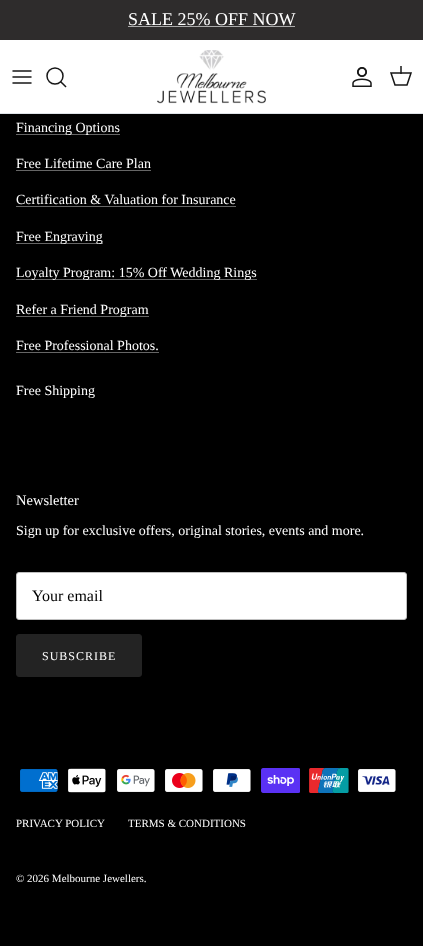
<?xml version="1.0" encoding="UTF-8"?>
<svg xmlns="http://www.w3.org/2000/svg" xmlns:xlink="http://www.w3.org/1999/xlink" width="423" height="947">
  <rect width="100%" height="100%" fill="#ffffff" />
  <rect width="423" height="40" fill="#2e2c2c" />
  <rect x="128" y="26" width="167" height="1" fill="#ababab" />
  <rect y="113" width="423" height="1" fill="#dfe3e8" />
  <path d="M 13 77 h 18 m -18 -6 h 18 m -18 12 h 18" fill="none" stroke="#171717" stroke-width="1.5" stroke-linecap="round" stroke-linejoin="round" />
  <circle cx="55" cy="76" r="8" fill="none" stroke="#171717" stroke-width="1.5" />
  <path d="M 61 82 l 4.5 4.5" fill="none" stroke="#171717" stroke-width="1.5" stroke-linecap="square" />
  <image x="157" y="50" width="109" height="54" xlink:href="image1.png" />
  <image x="352" y="67" width="20" height="20" xlink:href="image2.png" />
  <path d="M 391 73 h 20 l -4 12 h -12 z" fill="none" stroke="#171717" stroke-width="1.5" />
  <rect x="400" y="66" width="2" height="8" fill="#171717" fill-opacity="0.75" />
  <rect y="114" width="423" height="832" fill="#000000" />
  <rect x="16" y="134" width="104" height="1" fill="#666666" />
  <rect x="16" y="170" width="135" height="1" fill="#666666" />
  <rect x="16" y="206" width="220" height="1" fill="#666666" />
  <rect x="16" y="243" width="87" height="1" fill="#666666" />
  <rect x="16" y="279" width="241" height="1" fill="#666666" />
  <rect x="16" y="316" width="133" height="1" fill="#666666" />
  <rect x="16" y="352" width="143" height="1" fill="#666666" />
  <rect x="16.5" y="572.5" width="390" height="47" rx="2.5" fill="#ffffff" stroke="#bfbfbf" />
  <rect x="16.5" y="634.5" width="125" height="42" rx="2.5" fill="#232323" stroke="#232323" />
  <image x="20" y="769" width="38" height="23" xlink:href="image3.png" />
  <image x="68" y="768" width="38" height="25" xlink:href="image4.png" />
  <image x="117" y="769" width="38" height="23" xlink:href="image5.png" />
  <image x="165" y="769" width="38" height="23" xlink:href="image6.png" />
  <image x="213" y="769" width="38" height="23" xlink:href="image7.png" />
  <image x="261" y="768" width="39" height="25" xlink:href="image8.png" />
  <image x="309" y="768" width="40" height="25" xlink:href="image9.png" />
  <image x="358" y="769" width="38" height="23" xlink:href="image10.png" />
  <text x="128" y="25" style="font-family: Liberation Serif; font-size: 18px; fill: #ffffff">SALE 25% OFF NOW</text>
  <text x="16" y="132" style="font-family: Liberation Serif; font-size: 14px; fill: #ffffff">Financing Options</text>
  <text x="16" y="168" style="font-family: Liberation Serif; font-size: 14px; fill: #ffffff">Free Lifetime Care Plan</text>
  <text x="16" y="204" style="font-family: Liberation Serif; font-size: 14px; fill: #ffffff">Certification &amp; Valuation for Insurance</text>
  <text x="16" y="241" style="font-family: Liberation Serif; font-size: 14px; fill: #ffffff">Free Engraving</text>
  <text x="16" y="277" style="font-family: Liberation Serif; font-size: 14px; fill: #ffffff">Loyalty Program: 15% Off Wedding Rings</text>
  <text x="16" y="314" style="font-family: Liberation Serif; font-size: 14px; fill: #ffffff">Refer a Friend Program</text>
  <text x="16" y="350" style="font-family: Liberation Serif; font-size: 14px; fill: #ffffff">Free Professional Photos.</text>
  <text x="16" y="395" style="font-family: Liberation Serif; font-size: 14px; fill: #ffffff">Free Shipping</text>
  <text x="16" y="505" style="font-family: Liberation Serif; font-size: 14.5px; fill: #ffffff">Newsletter</text>
  <text x="16" y="535" style="font-family: Liberation Serif; font-size: 14px; fill: #ffffff">Sign up for exclusive offers, original stories, events and more.</text>
  <text x="32" y="601" style="font-family: Liberation Serif; font-size: 16px; fill: #000000">Your email</text>
  <text x="42" y="660" style="font-family: Liberation Serif; font-size: 12px; letter-spacing: 1px; fill: #ffffff">SUBSCRIBE</text>
  <text x="16" y="827" style="font-family: Liberation Serif; font-size: 11px; fill: #ffffff">PRIVACY POLICY</text>
  <text x="128" y="827" style="font-family: Liberation Serif; font-size: 11px; fill: #ffffff">TERMS &amp; CONDITIONS</text>
  <text x="16" y="882" style="font-family: Liberation Serif; font-size: 11px; fill: #ffffff">© 2026 Melbourne Jewellers.</text>
</svg>
